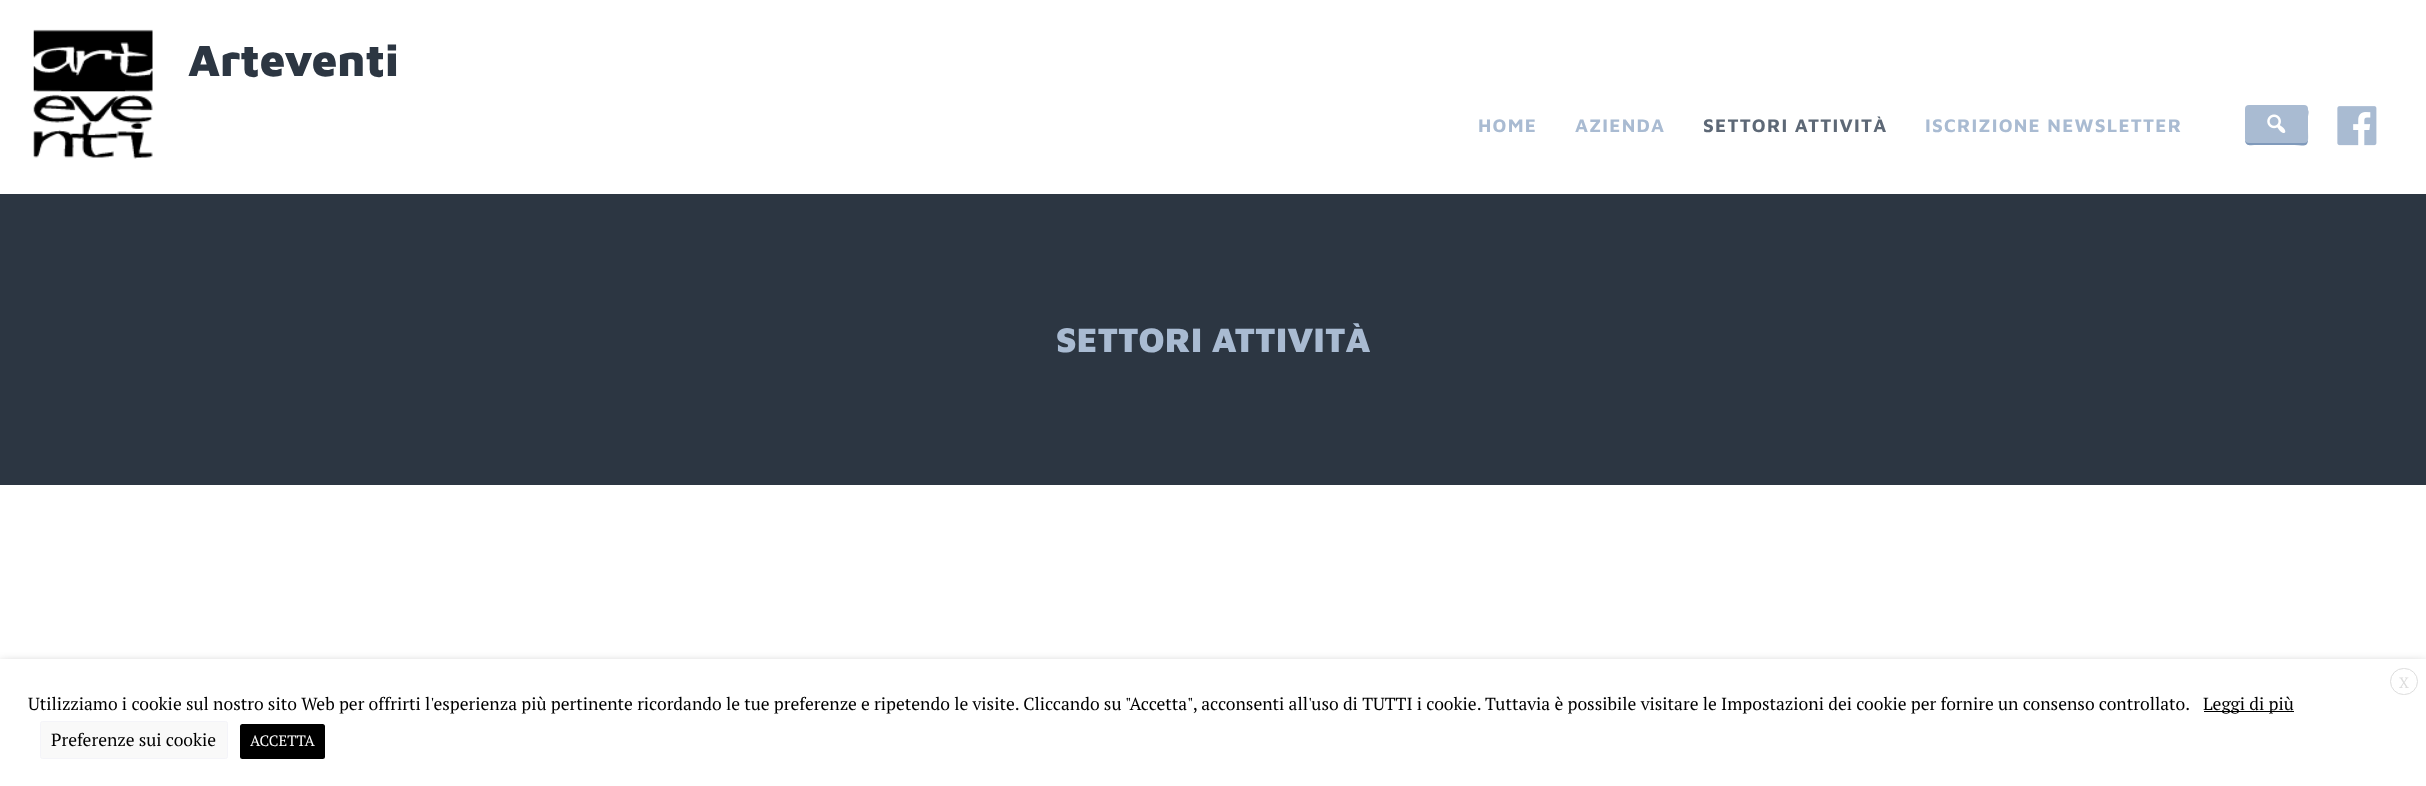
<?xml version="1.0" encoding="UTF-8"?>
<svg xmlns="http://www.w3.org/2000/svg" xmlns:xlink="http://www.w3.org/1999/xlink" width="2426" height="786">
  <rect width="100%" height="100%" fill="#ffffff" />
  <image x="33" y="29" width="120" height="130" xlink:href="image1.png" />
  <path d="M 2245 139 c 0 8 5 6 13 6 h 28 c 25 0 22 5 22 -19 v -9 c 0 -2 1 -5 0 -7 v 29 c 0 2 -2 3 -4 3 h -55 c -2 0 -4 -1 -4 -3 z" fill="#809abb" />
  <rect x="2245" y="105" width="63" height="38" rx="4" fill="#a9bbd2" />
  <image x="2267" y="114" width="19" height="19" xlink:href="image2.png" />
  <image x="2337" y="106" width="40" height="40" xlink:href="image3.png" />
  <rect y="194" width="2426" height="291" fill="#2c3642" />
  <rect y="665" width="2426" height="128" fill="#000000" fill-opacity="0.5" filter="blur(6px)" />
  <rect y="659" width="2426" height="127" fill="#ffffff" />
  <rect x="2390.5" y="668.5" width="27" height="26" rx="13" fill="none" stroke="#dddddd" />
  <rect x="2204" y="711" width="90" height="1" fill="#000000" />
  <rect x="40.5" y="721.5" width="187" height="37" rx="2" fill="#f9f9f9" stroke="#f4f4f9" />
  <rect x="240" y="724" width="85" height="35" rx="2.5" fill="#000000" />
  <text x="188" y="76" style="font-family: Maven Pro; font-size: 45px; font-weight: 900; fill: #2c3642">Arteventi</text>
  <text x="1478" y="132" style="font-family: Maven Pro; font-size: 18.75px; font-weight: bold; letter-spacing: 1.25px; fill: #a9bbd2">HOME</text>
  <text x="1575" y="132" style="font-family: Maven Pro; font-size: 18.75px; font-weight: bold; letter-spacing: 1.25px; fill: #a9bbd2">AZIENDA</text>
  <text x="1703" y="132" style="font-family: Maven Pro; font-size: 18.75px; font-weight: bold; letter-spacing: 1.25px; fill: #5d6876">SETTORI ATTIVITÀ</text>
  <text x="1925" y="132" style="font-family: Maven Pro; font-size: 18.75px; font-weight: bold; letter-spacing: 1.25px; fill: #a9bbd2">ISCRIZIONE NEWSLETTER</text>
  <text x="1056" y="352" style="font-family: Maven Pro; font-size: 35px; font-weight: 900; fill: #a9bbd2">SETTORI ATTIVITÀ</text>
  <text x="2399" y="688" style="font-family: PT Serif; font-size: 15px; fill: #dddddd">X</text>
  <text x="28" y="710" style="font-family: PT Serif; font-size: 17.5px; fill: #000000">Utilizziamo i cookie sul nostro sito Web per offrirti l'esperienza più pertinente ricordando le tue preferenze e ripetendo le visite. Cliccando su "Accetta", acconsenti all'uso di TUTTI i cookie. Tuttavia è possibile visitare le Impostazioni dei cookie per fornire un consenso controllato.</text>
  <text x="2203" y="710" style="font-family: PT Serif; font-size: 17.5px; fill: #000000">Leggi di più</text>
  <text x="51" y="746" style="font-family: PT Serif; font-size: 17.5px; fill: #000000">Preferenze sui cookie</text>
  <text x="250" y="746" style="font-family: PT Serif; font-size: 15px; fill: #ffffff">ACCETTA</text>
</svg>
